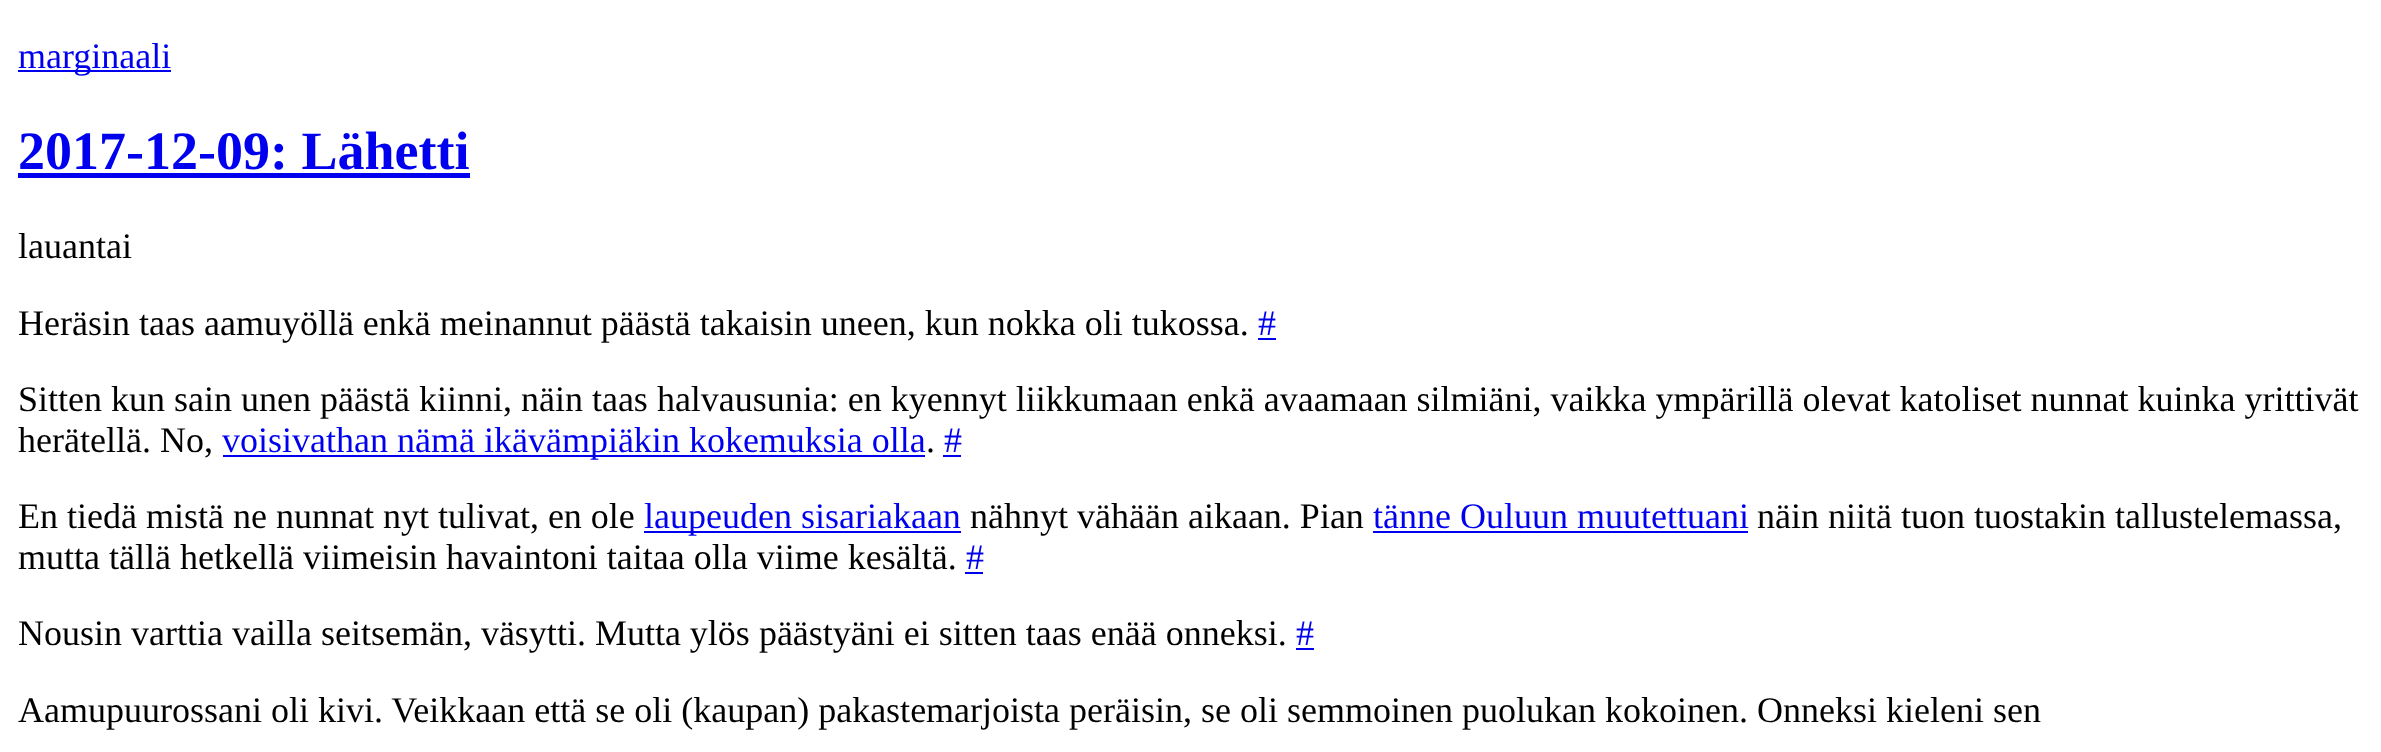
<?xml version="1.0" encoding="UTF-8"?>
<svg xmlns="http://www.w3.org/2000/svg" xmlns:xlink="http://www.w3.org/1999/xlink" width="2381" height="752">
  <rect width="100%" height="100%" fill="#ffffff" />
  <rect x="18" y="70" width="153" height="2" fill="#0000ee" />
  <rect x="18" y="173" width="452" height="5" fill="#0000ee" />
  <rect x="1258" y="338" width="18" height="2" fill="#0000ee" />
  <rect x="223" y="455" width="702" height="2" fill="#0000ee" />
  <rect x="943" y="455" width="18" height="2" fill="#0000ee" />
  <rect x="644" y="531" width="317" height="2" fill="#0000ee" />
  <rect x="1373" y="531" width="375" height="2" fill="#0000ee" />
  <rect x="965" y="572" width="18" height="2" fill="#0000ee" />
  <rect x="1296" y="648" width="18" height="2" fill="#0000ee" />
  <text x="18" y="68" style="font-family: Liberation Serif; font-size: 36px; fill: #0000ee">marginaali</text>
  <text x="18" y="169" style="font-family: Liberation Serif; font-size: 54px; font-weight: bold; fill: #0000ee">2017-12-09: Lähetti</text>
  <text x="18" y="258" style="font-family: Liberation Serif; font-size: 36px; fill: #000000">lauantai</text>
  <text x="18" y="335" style="font-family: Liberation Serif; font-size: 36px; fill: #000000">Heräsin taas aamuyöllä enkä meinannut päästä takaisin uneen, kun nokka oli tukossa.</text>
  <text x="1258" y="335" style="font-family: Liberation Serif; font-size: 36px; fill: #0000ee">#</text>
  <text x="18" y="411" style="font-family: Liberation Serif; font-size: 36px; fill: #000000">Sitten kun sain unen päästä kiinni, näin taas halvausunia: en kyennyt liikkumaan enkä avaamaan silmiäni, vaikka ympärillä olevat katoliset nunnat kuinka yrittivät</text>
  <text x="18" y="452" style="font-family: Liberation Serif; font-size: 36px; fill: #000000">herätellä. No,</text>
  <text x="222" y="452" style="font-family: Liberation Serif; font-size: 36px; fill: #0000ee">voisivathan nämä ikävämpiäkin kokemuksia olla</text>
  <text x="926" y="452" style="font-family: Liberation Serif; font-size: 36px; fill: #000000">.</text>
  <text x="944" y="452" style="font-family: Liberation Serif; font-size: 36px; fill: #0000ee">#</text>
  <text x="18" y="528" style="font-family: Liberation Serif; font-size: 36px; fill: #000000">En tiedä mistä ne nunnat nyt tulivat, en ole</text>
  <text x="644" y="528" style="font-family: Liberation Serif; font-size: 36px; fill: #0000ee">laupeuden sisariakaan</text>
  <text x="970" y="528" style="font-family: Liberation Serif; font-size: 36px; fill: #000000">nähnyt vähään aikaan. Pian</text>
  <text x="1373" y="528" style="font-family: Liberation Serif; font-size: 36px; fill: #0000ee">tänne Ouluun muutettuani</text>
  <text x="1757" y="528" style="font-family: Liberation Serif; font-size: 36px; fill: #000000">näin niitä tuon tuostakin tallustelemassa,</text>
  <text x="18" y="569" style="font-family: Liberation Serif; font-size: 36px; fill: #000000">mutta tällä hetkellä viimeisin havaintoni taitaa olla viime kesältä.</text>
  <text x="966" y="569" style="font-family: Liberation Serif; font-size: 36px; fill: #0000ee">#</text>
  <text x="18" y="645" style="font-family: Liberation Serif; font-size: 36px; fill: #000000">Nousin varttia vailla seitsemän, väsytti. Mutta ylös päästyäni ei sitten taas enää onneksi.</text>
  <text x="1296" y="645" style="font-family: Liberation Serif; font-size: 36px; fill: #0000ee">#</text>
  <text x="18" y="722" style="font-family: Liberation Serif; font-size: 36px; fill: #000000">Aamupuurossani oli kivi. Veikkaan että se oli (kaupan) pakastemarjoista peräisin, se oli semmoinen puolukan kokoinen. Onneksi kieleni sen</text>
</svg>
